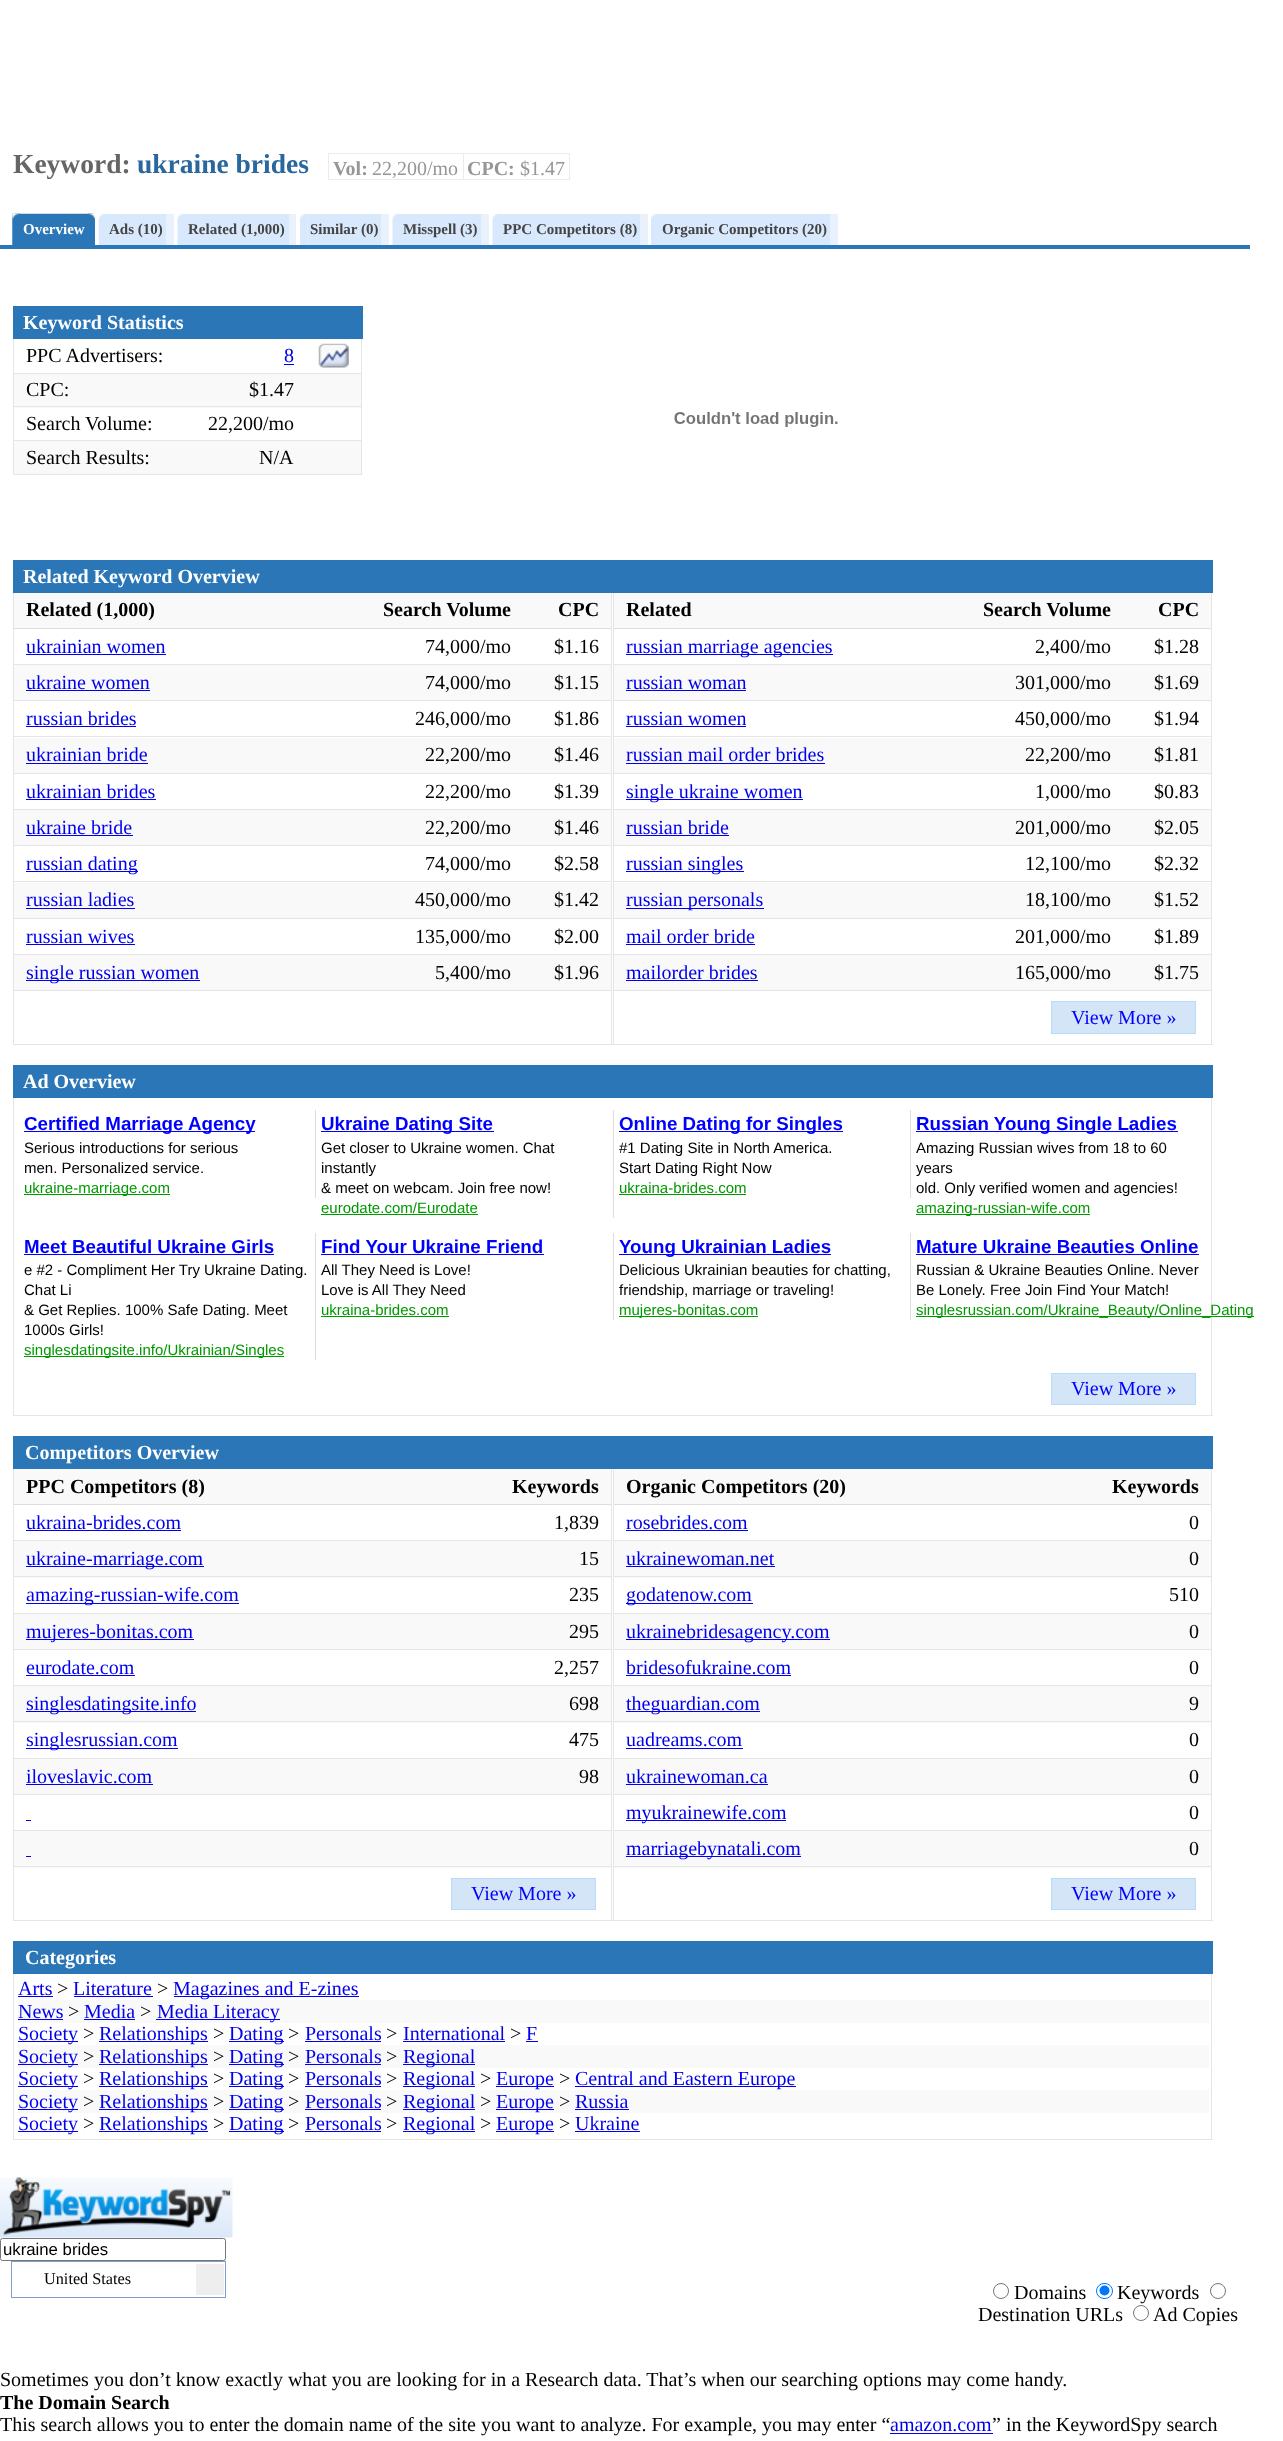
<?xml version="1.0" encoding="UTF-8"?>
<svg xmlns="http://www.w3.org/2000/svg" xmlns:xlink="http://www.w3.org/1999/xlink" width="1283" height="2441">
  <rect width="100%" height="100%" fill="#ffffff" />
  <rect x="328" y="153" width="135" height="1" fill="#ebebeb" />
  <rect x="328" y="179" width="135" height="1" fill="#ebebeb" />
  <rect x="328" y="153" width="1" height="27" fill="#ebebeb" />
  <rect x="463.5" y="153.5" width="106" height="26" fill="none" stroke="#ebebeb" />
  <rect y="245" width="1250" height="4" fill="#2b76b7" />
  <image x="12" y="213" width="82" height="32" xlink:href="image1.png" />
  <image x="12" y="213" width="8" height="32" xlink:href="image2.png" />
  <rect x="88" y="214" width="7" height="31" fill="#2b76b7" />
  <image x="87" y="213" width="8" height="7" xlink:href="image3.png" />
  <rect x="106" y="214" width="60" height="31" fill="#d8e9fd" />
  <image x="98" y="213" width="8" height="32" xlink:href="image4.png" />
  <rect x="166" y="214" width="8" height="31" fill="#e9f1fc" />
  <rect x="185" y="214" width="104" height="31" fill="#d8e9fd" />
  <image x="177" y="213" width="8" height="32" xlink:href="image5.png" />
  <rect x="289" y="214" width="7" height="31" fill="#e9f1fc" />
  <rect x="308" y="214" width="73" height="31" fill="#d8e9fd" />
  <rect x="307" y="214" width="1" height="31" fill="#e9f1fc" />
  <image x="300" y="213" width="8" height="32" xlink:href="image6.png" />
  <rect x="381" y="214" width="8" height="31" fill="#e9f1fc" />
  <rect x="400" y="214" width="81" height="31" fill="#d8e9fd" />
  <image x="392" y="213" width="8" height="32" xlink:href="image7.png" />
  <rect x="481" y="214" width="8" height="31" fill="#e9f1fc" />
  <rect x="500" y="214" width="140" height="31" fill="#d8e9fd" />
  <image x="492" y="213" width="8" height="32" xlink:href="image5.png" />
  <rect x="640" y="214" width="8" height="31" fill="#e9f1fc" />
  <rect x="651" y="214" width="179" height="31" fill="#d8e9fd" />
  <image x="651" y="213" width="8" height="32" xlink:href="image8.png" />
  <rect x="830" y="214" width="8" height="31" fill="#e9f1fc" />
  <rect x="13" y="306" width="350" height="33" fill="#2b76b7" />
  <rect x="361" y="339" width="1" height="136" fill="#e5e5e5" />
  <rect x="13" y="339" width="1" height="136" fill="#e5e5e5" />
  <rect x="14" y="373" width="347" height="1" fill="#e5e5e5" />
  <rect x="284" y="364" width="10" height="1" fill="#0000ee" />
  <image x="318" y="343" width="31" height="25" xlink:href="image9.png" />
  <rect x="14" y="374" width="347" height="34" fill="#f9f9f9" />
  <rect x="14" y="406" width="347" height="1" fill="#e5e5e5" />
  <rect x="14" y="440" width="347" height="1" fill="#e5e5e5" />
  <rect x="14" y="441" width="347" height="33" fill="#f9f9f9" />
  <rect x="14" y="474" width="347" height="1" fill="#e5e5e5" />
  <image x="674" y="412" width="164" height="15" xlink:href="image10.png" />
  <rect x="13" y="560" width="1200" height="33" fill="#2b76b7" />
  <rect x="611" y="593" width="1" height="452" fill="#e5e5e5" />
  <rect x="13" y="1044" width="600" height="1" fill="#e5e5e5" />
  <rect x="13" y="593" width="1" height="452" fill="#e5e5e5" />
  <rect x="14" y="593" width="597" height="35" fill="#f9f9f9" />
  <rect x="14" y="628" width="597" height="1" fill="#dddddd" />
  <rect x="14" y="664" width="597" height="1" fill="#e5e5e5" />
  <rect x="26" y="654" width="140" height="1" fill="#0000ee" />
  <rect x="14" y="665" width="597" height="35" fill="#f9f9f9" />
  <rect x="14" y="700" width="597" height="1" fill="#e5e5e5" />
  <rect x="26" y="690" width="124" height="1" fill="#0000ee" />
  <rect x="14" y="736" width="597" height="1" fill="#e5e5e5" />
  <rect x="26" y="726" width="110" height="1" fill="#0000ee" />
  <rect x="14" y="738" width="597" height="35" fill="#f9f9f9" />
  <rect x="14" y="773" width="597" height="1" fill="#e5e5e5" />
  <rect x="26" y="763" width="122" height="1" fill="#0000ee" />
  <rect x="14" y="809" width="597" height="1" fill="#e5e5e5" />
  <rect x="26" y="799" width="130" height="1" fill="#0000ee" />
  <rect x="14" y="810" width="597" height="35" fill="#f9f9f9" />
  <rect x="14" y="845" width="597" height="1" fill="#e5e5e5" />
  <rect x="26" y="835" width="107" height="1" fill="#0000ee" />
  <rect x="14" y="881" width="597" height="1" fill="#e5e5e5" />
  <rect x="26" y="871" width="112" height="1" fill="#0000ee" />
  <rect x="14" y="883" width="597" height="35" fill="#f9f9f9" />
  <rect x="14" y="918" width="597" height="1" fill="#e5e5e5" />
  <rect x="26" y="908" width="109" height="1" fill="#0000ee" />
  <rect x="14" y="954" width="597" height="1" fill="#e5e5e5" />
  <rect x="26" y="944" width="109" height="1" fill="#0000ee" />
  <rect x="14" y="955" width="597" height="35" fill="#f9f9f9" />
  <rect x="14" y="990" width="597" height="1" fill="#e5e5e5" />
  <rect x="26" y="980" width="174" height="1" fill="#0000ee" />
  <rect x="1211" y="593" width="1" height="452" fill="#e5e5e5" />
  <rect x="613" y="1044" width="600" height="1" fill="#e5e5e5" />
  <rect x="613" y="593" width="1" height="452" fill="#e5e5e5" />
  <rect x="614" y="593" width="597" height="35" fill="#f9f9f9" />
  <rect x="614" y="628" width="597" height="1" fill="#dddddd" />
  <rect x="614" y="664" width="597" height="1" fill="#e5e5e5" />
  <rect x="626" y="654" width="207" height="1" fill="#0000ee" />
  <rect x="614" y="665" width="597" height="35" fill="#f9f9f9" />
  <rect x="614" y="700" width="597" height="1" fill="#e5e5e5" />
  <rect x="626" y="690" width="120" height="1" fill="#0000ee" />
  <rect x="614" y="736" width="597" height="1" fill="#e5e5e5" />
  <rect x="626" y="726" width="120" height="1" fill="#0000ee" />
  <rect x="614" y="738" width="597" height="35" fill="#f9f9f9" />
  <rect x="614" y="773" width="597" height="1" fill="#e5e5e5" />
  <rect x="626" y="763" width="199" height="1" fill="#0000ee" />
  <rect x="614" y="809" width="597" height="1" fill="#e5e5e5" />
  <rect x="626" y="799" width="177" height="1" fill="#0000ee" />
  <rect x="614" y="810" width="597" height="35" fill="#f9f9f9" />
  <rect x="614" y="845" width="597" height="1" fill="#e5e5e5" />
  <rect x="626" y="835" width="103" height="1" fill="#0000ee" />
  <rect x="614" y="881" width="597" height="1" fill="#e5e5e5" />
  <rect x="626" y="871" width="118" height="1" fill="#0000ee" />
  <rect x="614" y="883" width="597" height="35" fill="#f9f9f9" />
  <rect x="614" y="918" width="597" height="1" fill="#e5e5e5" />
  <rect x="626" y="908" width="138" height="1" fill="#0000ee" />
  <rect x="614" y="954" width="597" height="1" fill="#e5e5e5" />
  <rect x="626" y="944" width="129" height="1" fill="#0000ee" />
  <rect x="614" y="955" width="597" height="35" fill="#f9f9f9" />
  <rect x="614" y="990" width="597" height="1" fill="#e5e5e5" />
  <rect x="626" y="980" width="132" height="1" fill="#0000ee" />
  <rect x="1051.5" y="1001.5" width="144" height="32" fill="#d3e5f7" stroke="#b9dbfc" />
  <rect x="13" y="1065" width="1200" height="33" fill="#2b76b7" />
  <rect x="1211" y="1098" width="1" height="318" fill="#e5e5e5" />
  <rect x="13" y="1415" width="1200" height="1" fill="#e5e5e5" />
  <rect x="13" y="1098" width="1" height="318" fill="#e5e5e5" />
  <rect x="315" y="1110" width="1" height="88" fill="#dddddd" />
  <rect x="24" y="1131" width="231" height="1" fill="#0000ff" />
  <rect x="24" y="1194" width="146" height="1" fill="#009900" />
  <rect x="613" y="1110" width="1" height="108" fill="#dddddd" />
  <rect x="321" y="1131" width="173" height="1" fill="#0000ff" />
  <rect x="321" y="1214" width="157" height="1" fill="#009900" />
  <rect x="910" y="1110" width="1" height="88" fill="#dddddd" />
  <rect x="619" y="1131" width="224" height="1" fill="#0000ff" />
  <rect x="619" y="1194" width="127" height="1" fill="#009900" />
  <rect x="916" y="1131" width="262" height="1" fill="#0000ff" />
  <rect x="916" y="1214" width="174" height="1" fill="#009900" />
  <rect x="315" y="1233" width="1" height="127" fill="#dddddd" />
  <rect x="24" y="1254" width="250" height="1" fill="#0000ff" />
  <rect x="24" y="1356" width="260" height="1" fill="#009900" />
  <rect x="613" y="1233" width="1" height="87" fill="#dddddd" />
  <rect x="321" y="1254" width="223" height="1" fill="#0000ff" />
  <rect x="321" y="1316" width="128" height="1" fill="#009900" />
  <rect x="910" y="1233" width="1" height="87" fill="#dddddd" />
  <rect x="619" y="1254" width="212" height="1" fill="#0000ff" />
  <rect x="619" y="1316" width="139" height="1" fill="#009900" />
  <rect x="916" y="1254" width="283" height="1" fill="#0000ff" />
  <rect x="916" y="1316" width="338" height="1" fill="#009900" />
  <rect x="1051.5" y="1373.5" width="144" height="31" fill="#d3e5f7" stroke="#b9dbfc" />
  <rect x="13" y="1436" width="1200" height="33" fill="#2b76b7" />
  <rect x="611" y="1469" width="1" height="452" fill="#e5e5e5" />
  <rect x="13" y="1920" width="600" height="1" fill="#e5e5e5" />
  <rect x="13" y="1469" width="1" height="452" fill="#e5e5e5" />
  <rect x="14" y="1469" width="597" height="35" fill="#f9f9f9" />
  <rect x="14" y="1504" width="597" height="1" fill="#dddddd" />
  <rect x="14" y="1540" width="597" height="1" fill="#e5e5e5" />
  <rect x="26" y="1530" width="155" height="1" fill="#0000ee" />
  <rect x="14" y="1541" width="597" height="37" fill="#f9f9f9" />
  <rect x="14" y="1576" width="597" height="1" fill="#e5e5e5" />
  <rect x="26" y="1566" width="178" height="1" fill="#0000ee" />
  <rect x="14" y="1613" width="597" height="1" fill="#e5e5e5" />
  <rect x="26" y="1603" width="213" height="1" fill="#0000ee" />
  <rect x="14" y="1614" width="597" height="35" fill="#f9f9f9" />
  <rect x="14" y="1649" width="597" height="1" fill="#e5e5e5" />
  <rect x="26" y="1639" width="168" height="1" fill="#0000ee" />
  <rect x="14" y="1685" width="597" height="1" fill="#e5e5e5" />
  <rect x="26" y="1675" width="109" height="1" fill="#0000ee" />
  <rect x="14" y="1686" width="597" height="37" fill="#f9f9f9" />
  <rect x="14" y="1721" width="597" height="1" fill="#e5e5e5" />
  <rect x="26" y="1711" width="170" height="1" fill="#0000ee" />
  <rect x="14" y="1758" width="597" height="1" fill="#e5e5e5" />
  <rect x="26" y="1748" width="152" height="1" fill="#0000ee" />
  <rect x="14" y="1759" width="597" height="35" fill="#f9f9f9" />
  <rect x="14" y="1794" width="597" height="1" fill="#e5e5e5" />
  <rect x="26" y="1784" width="127" height="1" fill="#0000ee" />
  <rect x="14" y="1830" width="597" height="1" fill="#e5e5e5" />
  <rect x="26" y="1820" width="5" height="1" fill="#0000ee" />
  <rect x="14" y="1831" width="597" height="37" fill="#f9f9f9" />
  <rect x="14" y="1866" width="597" height="1" fill="#e5e5e5" />
  <rect x="26" y="1856" width="5" height="1" fill="#0000ee" />
  <rect x="451.5" y="1878.5" width="144" height="31" fill="#d3e5f7" stroke="#b9dbfc" />
  <rect x="1211" y="1469" width="1" height="452" fill="#e5e5e5" />
  <rect x="613" y="1920" width="600" height="1" fill="#e5e5e5" />
  <rect x="613" y="1469" width="1" height="452" fill="#e5e5e5" />
  <rect x="614" y="1469" width="597" height="35" fill="#f9f9f9" />
  <rect x="614" y="1504" width="597" height="1" fill="#dddddd" />
  <rect x="614" y="1540" width="597" height="1" fill="#e5e5e5" />
  <rect x="626" y="1530" width="122" height="1" fill="#0000ee" />
  <rect x="614" y="1541" width="597" height="37" fill="#f9f9f9" />
  <rect x="614" y="1576" width="597" height="1" fill="#e5e5e5" />
  <rect x="626" y="1566" width="149" height="1" fill="#0000ee" />
  <rect x="614" y="1613" width="597" height="1" fill="#e5e5e5" />
  <rect x="626" y="1603" width="127" height="1" fill="#0000ee" />
  <rect x="614" y="1614" width="597" height="35" fill="#f9f9f9" />
  <rect x="614" y="1649" width="597" height="1" fill="#e5e5e5" />
  <rect x="626" y="1639" width="204" height="1" fill="#0000ee" />
  <rect x="614" y="1685" width="597" height="1" fill="#e5e5e5" />
  <rect x="626" y="1675" width="165" height="1" fill="#0000ee" />
  <rect x="614" y="1686" width="597" height="37" fill="#f9f9f9" />
  <rect x="614" y="1721" width="597" height="1" fill="#e5e5e5" />
  <rect x="626" y="1711" width="134" height="1" fill="#0000ee" />
  <rect x="614" y="1758" width="597" height="1" fill="#e5e5e5" />
  <rect x="626" y="1748" width="117" height="1" fill="#0000ee" />
  <rect x="614" y="1759" width="597" height="35" fill="#f9f9f9" />
  <rect x="614" y="1794" width="597" height="1" fill="#e5e5e5" />
  <rect x="626" y="1784" width="142" height="1" fill="#0000ee" />
  <rect x="614" y="1830" width="597" height="1" fill="#e5e5e5" />
  <rect x="626" y="1820" width="160" height="1" fill="#0000ee" />
  <rect x="614" y="1831" width="597" height="37" fill="#f9f9f9" />
  <rect x="614" y="1866" width="597" height="1" fill="#e5e5e5" />
  <rect x="626" y="1856" width="175" height="1" fill="#0000ee" />
  <rect x="1051.5" y="1878.5" width="144" height="31" fill="#d3e5f7" stroke="#b9dbfc" />
  <rect x="13" y="1941" width="1200" height="33" fill="#2b76b7" />
  <rect x="1211" y="1974" width="1" height="166" fill="#e5e5e5" />
  <rect x="13" y="2139" width="1200" height="1" fill="#e5e5e5" />
  <rect x="13" y="1974" width="1" height="166" fill="#e5e5e5" />
  <rect x="18" y="1996" width="35" height="1" fill="#0000ee" />
  <rect x="74" y="1996" width="79" height="1" fill="#0000ee" />
  <rect x="174" y="1996" width="185" height="1" fill="#0000ee" />
  <rect x="18" y="2000" width="1191" height="23" fill="#f9f9f9" />
  <rect x="18" y="2019" width="45" height="1" fill="#0000ee" />
  <rect x="84" y="2019" width="51" height="1" fill="#0000ee" />
  <rect x="156" y="2019" width="124" height="1" fill="#0000ee" />
  <rect x="18" y="2041" width="60" height="1" fill="#0000ee" />
  <rect x="99" y="2041" width="109" height="1" fill="#0000ee" />
  <rect x="229" y="2041" width="55" height="1" fill="#0000ee" />
  <rect x="305" y="2041" width="76" height="1" fill="#0000ee" />
  <rect x="403" y="2041" width="102" height="1" fill="#0000ee" />
  <rect x="526" y="2041" width="12" height="1" fill="#0000ee" />
  <rect x="18" y="2045" width="1191" height="23" fill="#f9f9f9" />
  <rect x="18" y="2064" width="60" height="1" fill="#0000ee" />
  <rect x="99" y="2064" width="109" height="1" fill="#0000ee" />
  <rect x="229" y="2064" width="55" height="1" fill="#0000ee" />
  <rect x="305" y="2064" width="76" height="1" fill="#0000ee" />
  <rect x="403" y="2064" width="72" height="1" fill="#0000ee" />
  <rect x="18" y="2086" width="60" height="1" fill="#0000ee" />
  <rect x="99" y="2086" width="109" height="1" fill="#0000ee" />
  <rect x="229" y="2086" width="55" height="1" fill="#0000ee" />
  <rect x="305" y="2086" width="76" height="1" fill="#0000ee" />
  <rect x="403" y="2086" width="72" height="1" fill="#0000ee" />
  <rect x="496" y="2086" width="58" height="1" fill="#0000ee" />
  <rect x="575" y="2086" width="221" height="1" fill="#0000ee" />
  <rect x="18" y="2090" width="1191" height="23" fill="#f9f9f9" />
  <rect x="18" y="2109" width="60" height="1" fill="#0000ee" />
  <rect x="99" y="2109" width="109" height="1" fill="#0000ee" />
  <rect x="229" y="2109" width="55" height="1" fill="#0000ee" />
  <rect x="305" y="2109" width="76" height="1" fill="#0000ee" />
  <rect x="403" y="2109" width="72" height="1" fill="#0000ee" />
  <rect x="496" y="2109" width="58" height="1" fill="#0000ee" />
  <rect x="575" y="2109" width="54" height="1" fill="#0000ee" />
  <rect x="18" y="2131" width="60" height="1" fill="#0000ee" />
  <rect x="99" y="2131" width="109" height="1" fill="#0000ee" />
  <rect x="229" y="2131" width="55" height="1" fill="#0000ee" />
  <rect x="305" y="2131" width="76" height="1" fill="#0000ee" />
  <rect x="403" y="2131" width="72" height="1" fill="#0000ee" />
  <rect x="496" y="2131" width="58" height="1" fill="#0000ee" />
  <rect x="575" y="2131" width="65" height="1" fill="#0000ee" />
  <image x="0" y="2177" width="233" height="61" xlink:href="image11.png" />
  <rect x="0.5" y="2238.5" width="225" height="22" rx="2" fill="none" stroke="#767676" />
  <rect x="11.5" y="2261.5" width="214" height="36" fill="none" stroke="#7d9fd0" />
  <rect x="196" y="2264" width="28" height="31" fill="#eeeeee" />
  <circle cx="1001" cy="2291" r="7.5" fill="none" stroke="#767676" />
  <rect x="1096.5" y="2283.5" width="16" height="15" rx="7.5" fill="none" stroke="#0075ff" />
  <circle cx="1104.5" cy="2290.5" r="5" fill="#0075ff" />
  <circle cx="1218" cy="2291" r="7.5" fill="none" stroke="#767676" />
  <circle cx="1141" cy="2313" r="7.5" fill="none" stroke="#767676" />
  <rect x="890" y="2433" width="103" height="1" fill="#0000ee" />
  <text x="13" y="173" style="font-family: Liberation Serif; font-size: 27.5px; font-weight: bold; fill: #666666">Keyword:</text>
  <text x="137" y="173" style="font-family: Liberation Serif; font-size: 27.5px; font-weight: bold; fill: #29679d">ukraine brides</text>
  <text x="333" y="175" style="font-family: Liberation Serif; font-size: 20px; font-weight: bold; fill: #969696">Vol:</text>
  <text x="372" y="175" style="font-family: Liberation Serif; font-size: 20px; fill: #969696">22,200/mo</text>
  <text x="467" y="175" style="font-family: Liberation Serif; font-size: 20px; font-weight: bold; fill: #969696">CPC:</text>
  <text x="520" y="175" style="font-family: Liberation Serif; font-size: 20px; fill: #969696">$1.47</text>
  <text x="23" y="234" style="font-family: Liberation Serif; font-size: 15px; font-weight: bold; fill: #ffffff">Overview</text>
  <text x="109" y="234" style="font-family: Liberation Serif; font-size: 15px; font-weight: bold; fill: #444444">Ads (10)</text>
  <text x="188" y="234" style="font-family: Liberation Serif; font-size: 15px; font-weight: bold; fill: #444444">Related (1,000)</text>
  <text x="310" y="234" style="font-family: Liberation Serif; font-size: 15px; font-weight: bold; fill: #444444">Similar (0)</text>
  <text x="403" y="234" style="font-family: Liberation Serif; font-size: 15px; font-weight: bold; fill: #444444">Misspell (3)</text>
  <text x="503" y="234" style="font-family: Liberation Serif; font-size: 15px; font-weight: bold; fill: #444444">PPC Competitors (8)</text>
  <text x="662" y="234" style="font-family: Liberation Serif; font-size: 15px; font-weight: bold; fill: #444444">Organic Competitors (20)</text>
  <text x="23" y="329" style="font-family: Liberation Serif; font-size: 20px; font-weight: bold; fill: #ffffff">Keyword Statistics</text>
  <text x="26" y="362" style="font-family: Liberation Serif; font-size: 20px; fill: #000000">PPC Advertisers:</text>
  <text x="284" y="362" style="font-family: Liberation Serif; font-size: 20px; fill: #0000ee">8</text>
  <text x="26" y="396" style="font-family: Liberation Serif; font-size: 20px; fill: #000000">CPC:</text>
  <text x="249" y="396" style="font-family: Liberation Serif; font-size: 20px; fill: #000000">$1.47</text>
  <text x="26" y="430" style="font-family: Liberation Serif; font-size: 20px; fill: #000000">Search Volume:</text>
  <text x="208" y="430" style="font-family: Liberation Serif; font-size: 20px; fill: #000000">22,200/mo</text>
  <text x="26" y="464" style="font-family: Liberation Serif; font-size: 20px; fill: #000000">Search Results:</text>
  <text x="259" y="464" style="font-family: Liberation Serif; font-size: 20px; fill: #000000">N/A</text>
  <text x="23" y="583" style="font-family: Liberation Serif; font-size: 20px; font-weight: bold; fill: #ffffff">Related Keyword Overview</text>
  <text x="26" y="616" style="font-family: Liberation Serif; font-size: 20px; font-weight: bold; fill: #000000">Related (1,000)</text>
  <text x="383" y="616" style="font-family: Liberation Serif; font-size: 20px; font-weight: bold; fill: #000000">Search Volume</text>
  <text x="558" y="616" style="font-family: Liberation Serif; font-size: 20px; font-weight: bold; fill: #000000">CPC</text>
  <text x="26" y="653" style="font-family: Liberation Serif; font-size: 20px; fill: #0000ee">ukrainian women</text>
  <text x="425" y="653" style="font-family: Liberation Serif; font-size: 20px; fill: #000000">74,000/mo</text>
  <text x="554" y="653" style="font-family: Liberation Serif; font-size: 20px; fill: #000000">$1.16</text>
  <text x="26" y="689" style="font-family: Liberation Serif; font-size: 20px; fill: #0000ee">ukraine women</text>
  <text x="425" y="689" style="font-family: Liberation Serif; font-size: 20px; fill: #000000">74,000/mo</text>
  <text x="554" y="689" style="font-family: Liberation Serif; font-size: 20px; fill: #000000">$1.15</text>
  <text x="26" y="725" style="font-family: Liberation Serif; font-size: 20px; fill: #0000ee">russian brides</text>
  <text x="415" y="725" style="font-family: Liberation Serif; font-size: 20px; fill: #000000">246,000/mo</text>
  <text x="554" y="725" style="font-family: Liberation Serif; font-size: 20px; fill: #000000">$1.86</text>
  <text x="26" y="761" style="font-family: Liberation Serif; font-size: 20px; fill: #0000ee">ukrainian bride</text>
  <text x="425" y="761" style="font-family: Liberation Serif; font-size: 20px; fill: #000000">22,200/mo</text>
  <text x="554" y="761" style="font-family: Liberation Serif; font-size: 20px; fill: #000000">$1.46</text>
  <text x="26" y="798" style="font-family: Liberation Serif; font-size: 20px; fill: #0000ee">ukrainian brides</text>
  <text x="425" y="798" style="font-family: Liberation Serif; font-size: 20px; fill: #000000">22,200/mo</text>
  <text x="554" y="798" style="font-family: Liberation Serif; font-size: 20px; fill: #000000">$1.39</text>
  <text x="26" y="834" style="font-family: Liberation Serif; font-size: 20px; fill: #0000ee">ukraine bride</text>
  <text x="425" y="834" style="font-family: Liberation Serif; font-size: 20px; fill: #000000">22,200/mo</text>
  <text x="554" y="834" style="font-family: Liberation Serif; font-size: 20px; fill: #000000">$1.46</text>
  <text x="26" y="870" style="font-family: Liberation Serif; font-size: 20px; fill: #0000ee">russian dating</text>
  <text x="425" y="870" style="font-family: Liberation Serif; font-size: 20px; fill: #000000">74,000/mo</text>
  <text x="554" y="870" style="font-family: Liberation Serif; font-size: 20px; fill: #000000">$2.58</text>
  <text x="26" y="906" style="font-family: Liberation Serif; font-size: 20px; fill: #0000ee">russian ladies</text>
  <text x="415" y="906" style="font-family: Liberation Serif; font-size: 20px; fill: #000000">450,000/mo</text>
  <text x="554" y="906" style="font-family: Liberation Serif; font-size: 20px; fill: #000000">$1.42</text>
  <text x="26" y="943" style="font-family: Liberation Serif; font-size: 20px; fill: #0000ee">russian wives</text>
  <text x="415" y="943" style="font-family: Liberation Serif; font-size: 20px; fill: #000000">135,000/mo</text>
  <text x="554" y="943" style="font-family: Liberation Serif; font-size: 20px; fill: #000000">$2.00</text>
  <text x="26" y="979" style="font-family: Liberation Serif; font-size: 20px; fill: #0000ee">single russian women</text>
  <text x="435" y="979" style="font-family: Liberation Serif; font-size: 20px; fill: #000000">5,400/mo</text>
  <text x="554" y="979" style="font-family: Liberation Serif; font-size: 20px; fill: #000000">$1.96</text>
  <text x="626" y="616" style="font-family: Liberation Serif; font-size: 20px; font-weight: bold; fill: #000000">Related</text>
  <text x="983" y="616" style="font-family: Liberation Serif; font-size: 20px; font-weight: bold; fill: #000000">Search Volume</text>
  <text x="1158" y="616" style="font-family: Liberation Serif; font-size: 20px; font-weight: bold; fill: #000000">CPC</text>
  <text x="626" y="653" style="font-family: Liberation Serif; font-size: 20px; fill: #0000ee">russian marriage agencies</text>
  <text x="1035" y="653" style="font-family: Liberation Serif; font-size: 20px; fill: #000000">2,400/mo</text>
  <text x="1154" y="653" style="font-family: Liberation Serif; font-size: 20px; fill: #000000">$1.28</text>
  <text x="626" y="689" style="font-family: Liberation Serif; font-size: 20px; fill: #0000ee">russian woman</text>
  <text x="1015" y="689" style="font-family: Liberation Serif; font-size: 20px; fill: #000000">301,000/mo</text>
  <text x="1154" y="689" style="font-family: Liberation Serif; font-size: 20px; fill: #000000">$1.69</text>
  <text x="626" y="725" style="font-family: Liberation Serif; font-size: 20px; fill: #0000ee">russian women</text>
  <text x="1015" y="725" style="font-family: Liberation Serif; font-size: 20px; fill: #000000">450,000/mo</text>
  <text x="1154" y="725" style="font-family: Liberation Serif; font-size: 20px; fill: #000000">$1.94</text>
  <text x="626" y="761" style="font-family: Liberation Serif; font-size: 20px; fill: #0000ee">russian mail order brides</text>
  <text x="1025" y="761" style="font-family: Liberation Serif; font-size: 20px; fill: #000000">22,200/mo</text>
  <text x="1154" y="761" style="font-family: Liberation Serif; font-size: 20px; fill: #000000">$1.81</text>
  <text x="626" y="798" style="font-family: Liberation Serif; font-size: 20px; fill: #0000ee">single ukraine women</text>
  <text x="1035" y="798" style="font-family: Liberation Serif; font-size: 20px; fill: #000000">1,000/mo</text>
  <text x="1154" y="798" style="font-family: Liberation Serif; font-size: 20px; fill: #000000">$0.83</text>
  <text x="626" y="834" style="font-family: Liberation Serif; font-size: 20px; fill: #0000ee">russian bride</text>
  <text x="1015" y="834" style="font-family: Liberation Serif; font-size: 20px; fill: #000000">201,000/mo</text>
  <text x="1154" y="834" style="font-family: Liberation Serif; font-size: 20px; fill: #000000">$2.05</text>
  <text x="626" y="870" style="font-family: Liberation Serif; font-size: 20px; fill: #0000ee">russian singles</text>
  <text x="1025" y="870" style="font-family: Liberation Serif; font-size: 20px; fill: #000000">12,100/mo</text>
  <text x="1154" y="870" style="font-family: Liberation Serif; font-size: 20px; fill: #000000">$2.32</text>
  <text x="626" y="906" style="font-family: Liberation Serif; font-size: 20px; fill: #0000ee">russian personals</text>
  <text x="1025" y="906" style="font-family: Liberation Serif; font-size: 20px; fill: #000000">18,100/mo</text>
  <text x="1154" y="906" style="font-family: Liberation Serif; font-size: 20px; fill: #000000">$1.52</text>
  <text x="626" y="943" style="font-family: Liberation Serif; font-size: 20px; fill: #0000ee">mail order bride</text>
  <text x="1015" y="943" style="font-family: Liberation Serif; font-size: 20px; fill: #000000">201,000/mo</text>
  <text x="1154" y="943" style="font-family: Liberation Serif; font-size: 20px; fill: #000000">$1.89</text>
  <text x="626" y="979" style="font-family: Liberation Serif; font-size: 20px; fill: #0000ee">mailorder brides</text>
  <text x="1015" y="979" style="font-family: Liberation Serif; font-size: 20px; fill: #000000">165,000/mo</text>
  <text x="1154" y="979" style="font-family: Liberation Serif; font-size: 20px; fill: #000000">$1.75</text>
  <text x="1071" y="1024" style="font-family: Liberation Serif; font-size: 20px; fill: #0000ff">View More »</text>
  <text x="23" y="1088" style="font-family: Liberation Serif; font-size: 20px; font-weight: bold; fill: #ffffff">Ad Overview</text>
  <text x="24" y="1130" style="font-family: Liberation Sans; font-size: 18.75px; font-weight: bold; fill: #0000ff">Certified Marriage Agency</text>
  <text x="24" y="1153" style="font-family: Liberation Sans; font-size: 15px; fill: #000000">Serious introductions for serious</text>
  <text x="24" y="1173" style="font-family: Liberation Sans; font-size: 15px; fill: #000000">men. Personalized service.</text>
  <text x="24" y="1193" style="font-family: Liberation Sans; font-size: 15px; fill: #009900">ukraine-marriage.com</text>
  <text x="321" y="1130" style="font-family: Liberation Sans; font-size: 18.75px; font-weight: bold; fill: #0000ff">Ukraine Dating Site</text>
  <text x="321" y="1153" style="font-family: Liberation Sans; font-size: 15px; fill: #000000">Get closer to Ukraine women. Chat</text>
  <text x="321" y="1173" style="font-family: Liberation Sans; font-size: 15px; fill: #000000">instantly</text>
  <text x="321" y="1193" style="font-family: Liberation Sans; font-size: 15px; fill: #000000">&amp; meet on webcam. Join free now!</text>
  <text x="321" y="1213" style="font-family: Liberation Sans; font-size: 15px; fill: #009900">eurodate.com/Eurodate</text>
  <text x="619" y="1130" style="font-family: Liberation Sans; font-size: 18.75px; font-weight: bold; fill: #0000ff">Online Dating for Singles</text>
  <text x="619" y="1153" style="font-family: Liberation Sans; font-size: 15px; fill: #000000">#1 Dating Site in North America.</text>
  <text x="619" y="1173" style="font-family: Liberation Sans; font-size: 15px; fill: #000000">Start Dating Right Now</text>
  <text x="619" y="1193" style="font-family: Liberation Sans; font-size: 15px; fill: #009900">ukraina-brides.com</text>
  <text x="916" y="1130" style="font-family: Liberation Sans; font-size: 18.75px; font-weight: bold; fill: #0000ff">Russian Young Single Ladies</text>
  <text x="916" y="1153" style="font-family: Liberation Sans; font-size: 15px; fill: #000000">Amazing Russian wives from 18 to 60</text>
  <text x="916" y="1173" style="font-family: Liberation Sans; font-size: 15px; fill: #000000">years</text>
  <text x="916" y="1193" style="font-family: Liberation Sans; font-size: 15px; fill: #000000">old. Only verified women and agencies!</text>
  <text x="916" y="1213" style="font-family: Liberation Sans; font-size: 15px; fill: #009900">amazing-russian-wife.com</text>
  <text x="24" y="1253" style="font-family: Liberation Sans; font-size: 18.75px; font-weight: bold; fill: #0000ff">Meet Beautiful Ukraine Girls</text>
  <text x="24" y="1275" style="font-family: Liberation Sans; font-size: 15px; fill: #000000">e #2 - Compliment Her Try Ukraine Dating.</text>
  <text x="24" y="1295" style="font-family: Liberation Sans; font-size: 15px; fill: #000000">Chat Li</text>
  <text x="24" y="1315" style="font-family: Liberation Sans; font-size: 15px; fill: #000000">&amp; Get Replies. 100% Safe Dating. Meet</text>
  <text x="24" y="1335" style="font-family: Liberation Sans; font-size: 15px; fill: #000000">1000s Girls!</text>
  <text x="24" y="1355" style="font-family: Liberation Sans; font-size: 15px; fill: #009900">singlesdatingsite.info/Ukrainian/Singles</text>
  <text x="321" y="1253" style="font-family: Liberation Sans; font-size: 18.75px; font-weight: bold; fill: #0000ff">Find Your Ukraine Friend</text>
  <text x="321" y="1275" style="font-family: Liberation Sans; font-size: 15px; fill: #000000">All They Need is Love!</text>
  <text x="321" y="1295" style="font-family: Liberation Sans; font-size: 15px; fill: #000000">Love is All They Need</text>
  <text x="321" y="1315" style="font-family: Liberation Sans; font-size: 15px; fill: #009900">ukraina-brides.com</text>
  <text x="619" y="1253" style="font-family: Liberation Sans; font-size: 18.75px; font-weight: bold; fill: #0000ff">Young Ukrainian Ladies</text>
  <text x="619" y="1275" style="font-family: Liberation Sans; font-size: 15px; fill: #000000">Delicious Ukrainian beauties for chatting,</text>
  <text x="619" y="1295" style="font-family: Liberation Sans; font-size: 15px; fill: #000000">friendship, marriage or traveling!</text>
  <text x="619" y="1315" style="font-family: Liberation Sans; font-size: 15px; fill: #009900">mujeres-bonitas.com</text>
  <text x="916" y="1253" style="font-family: Liberation Sans; font-size: 18.75px; font-weight: bold; fill: #0000ff">Mature Ukraine Beauties Online</text>
  <text x="916" y="1275" style="font-family: Liberation Sans; font-size: 15px; fill: #000000">Russian &amp; Ukraine Beauties Online. Never</text>
  <text x="916" y="1295" style="font-family: Liberation Sans; font-size: 15px; fill: #000000">Be Lonely. Free Join Find Your Match!</text>
  <text x="916" y="1315" style="font-family: Liberation Sans; font-size: 15px; fill: #009900">singlesrussian.com/Ukraine_Beauty/Online_Dating</text>
  <text x="1071" y="1395" style="font-family: Liberation Serif; font-size: 20px; fill: #0000ff">View More »</text>
  <text x="25" y="1459" style="font-family: Liberation Serif; font-size: 20px; font-weight: bold; fill: #ffffff">Competitors Overview</text>
  <text x="26" y="1493" style="font-family: Liberation Serif; font-size: 20px; font-weight: bold; fill: #000000">PPC Competitors (8)</text>
  <text x="512" y="1493" style="font-family: Liberation Serif; font-size: 20px; font-weight: bold; fill: #000000">Keywords</text>
  <text x="26" y="1529" style="font-family: Liberation Serif; font-size: 20px; fill: #0000ee">ukraina-brides.com</text>
  <text x="554" y="1529" style="font-family: Liberation Serif; font-size: 20px; fill: #000000">1,839</text>
  <text x="26" y="1565" style="font-family: Liberation Serif; font-size: 20px; fill: #0000ee">ukraine-marriage.com</text>
  <text x="579" y="1565" style="font-family: Liberation Serif; font-size: 20px; fill: #000000">15</text>
  <text x="26" y="1601" style="font-family: Liberation Serif; font-size: 20px; fill: #0000ee">amazing-russian-wife.com</text>
  <text x="569" y="1601" style="font-family: Liberation Serif; font-size: 20px; fill: #000000">235</text>
  <text x="26" y="1638" style="font-family: Liberation Serif; font-size: 20px; fill: #0000ee">mujeres-bonitas.com</text>
  <text x="569" y="1638" style="font-family: Liberation Serif; font-size: 20px; fill: #000000">295</text>
  <text x="26" y="1674" style="font-family: Liberation Serif; font-size: 20px; fill: #0000ee">eurodate.com</text>
  <text x="554" y="1674" style="font-family: Liberation Serif; font-size: 20px; fill: #000000">2,257</text>
  <text x="26" y="1710" style="font-family: Liberation Serif; font-size: 20px; fill: #0000ee">singlesdatingsite.info</text>
  <text x="569" y="1710" style="font-family: Liberation Serif; font-size: 20px; fill: #000000">698</text>
  <text x="26" y="1746" style="font-family: Liberation Serif; font-size: 20px; fill: #0000ee">singlesrussian.com</text>
  <text x="569" y="1746" style="font-family: Liberation Serif; font-size: 20px; fill: #000000">475</text>
  <text x="26" y="1783" style="font-family: Liberation Serif; font-size: 20px; fill: #0000ee">iloveslavic.com</text>
  <text x="579" y="1783" style="font-family: Liberation Serif; font-size: 20px; fill: #000000">98</text>
  <text x="471" y="1900" style="font-family: Liberation Serif; font-size: 20px; fill: #0000ff">View More »</text>
  <text x="626" y="1493" style="font-family: Liberation Serif; font-size: 20px; font-weight: bold; fill: #000000">Organic Competitors (20)</text>
  <text x="1112" y="1493" style="font-family: Liberation Serif; font-size: 20px; font-weight: bold; fill: #000000">Keywords</text>
  <text x="626" y="1529" style="font-family: Liberation Serif; font-size: 20px; fill: #0000ee">rosebrides.com</text>
  <text x="1189" y="1529" style="font-family: Liberation Serif; font-size: 20px; fill: #000000">0</text>
  <text x="626" y="1565" style="font-family: Liberation Serif; font-size: 20px; fill: #0000ee">ukrainewoman.net</text>
  <text x="1189" y="1565" style="font-family: Liberation Serif; font-size: 20px; fill: #000000">0</text>
  <text x="626" y="1601" style="font-family: Liberation Serif; font-size: 20px; fill: #0000ee">godatenow.com</text>
  <text x="1169" y="1601" style="font-family: Liberation Serif; font-size: 20px; fill: #000000">510</text>
  <text x="626" y="1638" style="font-family: Liberation Serif; font-size: 20px; fill: #0000ee">ukrainebridesagency.com</text>
  <text x="1189" y="1638" style="font-family: Liberation Serif; font-size: 20px; fill: #000000">0</text>
  <text x="626" y="1674" style="font-family: Liberation Serif; font-size: 20px; fill: #0000ee">bridesofukraine.com</text>
  <text x="1189" y="1674" style="font-family: Liberation Serif; font-size: 20px; fill: #000000">0</text>
  <text x="626" y="1710" style="font-family: Liberation Serif; font-size: 20px; fill: #0000ee">theguardian.com</text>
  <text x="1189" y="1710" style="font-family: Liberation Serif; font-size: 20px; fill: #000000">9</text>
  <text x="626" y="1746" style="font-family: Liberation Serif; font-size: 20px; fill: #0000ee">uadreams.com</text>
  <text x="1189" y="1746" style="font-family: Liberation Serif; font-size: 20px; fill: #000000">0</text>
  <text x="626" y="1783" style="font-family: Liberation Serif; font-size: 20px; fill: #0000ee">ukrainewoman.ca</text>
  <text x="1189" y="1783" style="font-family: Liberation Serif; font-size: 20px; fill: #000000">0</text>
  <text x="626" y="1819" style="font-family: Liberation Serif; font-size: 20px; fill: #0000ee">myukrainewife.com</text>
  <text x="1189" y="1819" style="font-family: Liberation Serif; font-size: 20px; fill: #000000">0</text>
  <text x="626" y="1855" style="font-family: Liberation Serif; font-size: 20px; fill: #0000ee">marriagebynatali.com</text>
  <text x="1189" y="1855" style="font-family: Liberation Serif; font-size: 20px; fill: #000000">0</text>
  <text x="1071" y="1900" style="font-family: Liberation Serif; font-size: 20px; fill: #0000ff">View More »</text>
  <text x="25" y="1964" style="font-family: Liberation Serif; font-size: 20px; font-weight: bold; fill: #ffffff">Categories</text>
  <text x="18" y="1995" style="font-family: Liberation Serif; font-size: 20px; fill: #0000ee">Arts</text>
  <text x="57" y="1995" style="font-family: Liberation Serif; font-size: 20px; fill: #000000">&gt;</text>
  <text x="73" y="1995" style="font-family: Liberation Serif; font-size: 20px; fill: #0000ee">Literature</text>
  <text x="157" y="1995" style="font-family: Liberation Serif; font-size: 20px; fill: #000000">&gt;</text>
  <text x="173" y="1995" style="font-family: Liberation Serif; font-size: 20px; fill: #0000ee">Magazines and E-zines</text>
  <text x="18" y="2018" style="font-family: Liberation Serif; font-size: 20px; fill: #0000ee">News</text>
  <text x="68" y="2018" style="font-family: Liberation Serif; font-size: 20px; fill: #000000">&gt;</text>
  <text x="84" y="2018" style="font-family: Liberation Serif; font-size: 20px; fill: #0000ee">Media</text>
  <text x="140" y="2018" style="font-family: Liberation Serif; font-size: 20px; fill: #000000">&gt;</text>
  <text x="157" y="2018" style="font-family: Liberation Serif; font-size: 20px; fill: #0000ee">Media Literacy</text>
  <text x="18" y="2040" style="font-family: Liberation Serif; font-size: 20px; fill: #0000ee">Society</text>
  <text x="83" y="2040" style="font-family: Liberation Serif; font-size: 20px; fill: #000000">&gt;</text>
  <text x="99" y="2040" style="font-family: Liberation Serif; font-size: 20px; fill: #0000ee">Relationships</text>
  <text x="213" y="2040" style="font-family: Liberation Serif; font-size: 20px; fill: #000000">&gt;</text>
  <text x="229" y="2040" style="font-family: Liberation Serif; font-size: 20px; fill: #0000ee">Dating</text>
  <text x="288" y="2040" style="font-family: Liberation Serif; font-size: 20px; fill: #000000">&gt;</text>
  <text x="305" y="2040" style="font-family: Liberation Serif; font-size: 20px; fill: #0000ee">Personals</text>
  <text x="386" y="2040" style="font-family: Liberation Serif; font-size: 20px; fill: #000000">&gt;</text>
  <text x="403" y="2040" style="font-family: Liberation Serif; font-size: 20px; fill: #0000ee">International</text>
  <text x="510" y="2040" style="font-family: Liberation Serif; font-size: 20px; fill: #000000">&gt;</text>
  <text x="526" y="2040" style="font-family: Liberation Serif; font-size: 20px; fill: #0000ee">F</text>
  <text x="18" y="2063" style="font-family: Liberation Serif; font-size: 20px; fill: #0000ee">Society</text>
  <text x="83" y="2063" style="font-family: Liberation Serif; font-size: 20px; fill: #000000">&gt;</text>
  <text x="99" y="2063" style="font-family: Liberation Serif; font-size: 20px; fill: #0000ee">Relationships</text>
  <text x="213" y="2063" style="font-family: Liberation Serif; font-size: 20px; fill: #000000">&gt;</text>
  <text x="229" y="2063" style="font-family: Liberation Serif; font-size: 20px; fill: #0000ee">Dating</text>
  <text x="288" y="2063" style="font-family: Liberation Serif; font-size: 20px; fill: #000000">&gt;</text>
  <text x="305" y="2063" style="font-family: Liberation Serif; font-size: 20px; fill: #0000ee">Personals</text>
  <text x="386" y="2063" style="font-family: Liberation Serif; font-size: 20px; fill: #000000">&gt;</text>
  <text x="403" y="2063" style="font-family: Liberation Serif; font-size: 20px; fill: #0000ee">Regional</text>
  <text x="18" y="2085" style="font-family: Liberation Serif; font-size: 20px; fill: #0000ee">Society</text>
  <text x="83" y="2085" style="font-family: Liberation Serif; font-size: 20px; fill: #000000">&gt;</text>
  <text x="99" y="2085" style="font-family: Liberation Serif; font-size: 20px; fill: #0000ee">Relationships</text>
  <text x="213" y="2085" style="font-family: Liberation Serif; font-size: 20px; fill: #000000">&gt;</text>
  <text x="229" y="2085" style="font-family: Liberation Serif; font-size: 20px; fill: #0000ee">Dating</text>
  <text x="288" y="2085" style="font-family: Liberation Serif; font-size: 20px; fill: #000000">&gt;</text>
  <text x="305" y="2085" style="font-family: Liberation Serif; font-size: 20px; fill: #0000ee">Personals</text>
  <text x="386" y="2085" style="font-family: Liberation Serif; font-size: 20px; fill: #000000">&gt;</text>
  <text x="403" y="2085" style="font-family: Liberation Serif; font-size: 20px; fill: #0000ee">Regional</text>
  <text x="480" y="2085" style="font-family: Liberation Serif; font-size: 20px; fill: #000000">&gt;</text>
  <text x="496" y="2085" style="font-family: Liberation Serif; font-size: 20px; fill: #0000ee">Europe</text>
  <text x="559" y="2085" style="font-family: Liberation Serif; font-size: 20px; fill: #000000">&gt;</text>
  <text x="575" y="2085" style="font-family: Liberation Serif; font-size: 20px; fill: #0000ee">Central and Eastern Europe</text>
  <text x="18" y="2108" style="font-family: Liberation Serif; font-size: 20px; fill: #0000ee">Society</text>
  <text x="83" y="2108" style="font-family: Liberation Serif; font-size: 20px; fill: #000000">&gt;</text>
  <text x="99" y="2108" style="font-family: Liberation Serif; font-size: 20px; fill: #0000ee">Relationships</text>
  <text x="213" y="2108" style="font-family: Liberation Serif; font-size: 20px; fill: #000000">&gt;</text>
  <text x="229" y="2108" style="font-family: Liberation Serif; font-size: 20px; fill: #0000ee">Dating</text>
  <text x="288" y="2108" style="font-family: Liberation Serif; font-size: 20px; fill: #000000">&gt;</text>
  <text x="305" y="2108" style="font-family: Liberation Serif; font-size: 20px; fill: #0000ee">Personals</text>
  <text x="386" y="2108" style="font-family: Liberation Serif; font-size: 20px; fill: #000000">&gt;</text>
  <text x="403" y="2108" style="font-family: Liberation Serif; font-size: 20px; fill: #0000ee">Regional</text>
  <text x="480" y="2108" style="font-family: Liberation Serif; font-size: 20px; fill: #000000">&gt;</text>
  <text x="496" y="2108" style="font-family: Liberation Serif; font-size: 20px; fill: #0000ee">Europe</text>
  <text x="559" y="2108" style="font-family: Liberation Serif; font-size: 20px; fill: #000000">&gt;</text>
  <text x="575" y="2108" style="font-family: Liberation Serif; font-size: 20px; fill: #0000ee">Russia</text>
  <text x="18" y="2130" style="font-family: Liberation Serif; font-size: 20px; fill: #0000ee">Society</text>
  <text x="83" y="2130" style="font-family: Liberation Serif; font-size: 20px; fill: #000000">&gt;</text>
  <text x="99" y="2130" style="font-family: Liberation Serif; font-size: 20px; fill: #0000ee">Relationships</text>
  <text x="213" y="2130" style="font-family: Liberation Serif; font-size: 20px; fill: #000000">&gt;</text>
  <text x="229" y="2130" style="font-family: Liberation Serif; font-size: 20px; fill: #0000ee">Dating</text>
  <text x="288" y="2130" style="font-family: Liberation Serif; font-size: 20px; fill: #000000">&gt;</text>
  <text x="305" y="2130" style="font-family: Liberation Serif; font-size: 20px; fill: #0000ee">Personals</text>
  <text x="386" y="2130" style="font-family: Liberation Serif; font-size: 20px; fill: #000000">&gt;</text>
  <text x="403" y="2130" style="font-family: Liberation Serif; font-size: 20px; fill: #0000ee">Regional</text>
  <text x="480" y="2130" style="font-family: Liberation Serif; font-size: 20px; fill: #000000">&gt;</text>
  <text x="496" y="2130" style="font-family: Liberation Serif; font-size: 20px; fill: #0000ee">Europe</text>
  <text x="559" y="2130" style="font-family: Liberation Serif; font-size: 20px; fill: #000000">&gt;</text>
  <text x="575" y="2130" style="font-family: Liberation Serif; font-size: 20px; fill: #0000ee">Ukraine</text>
  <text x="3" y="2255" style="font-family: Liberation Sans; font-size: 16.75px; fill: #000000">ukraine brides</text>
  <text x="44" y="2284" style="font-family: Liberation Serif; font-size: 16.25px; fill: #000000">United States</text>
  <text x="1014" y="2299" style="font-family: Liberation Serif; font-size: 20px; fill: #000000">Domains</text>
  <text x="1117" y="2299" style="font-family: Liberation Serif; font-size: 20px; fill: #000000">Keywords</text>
  <text x="978" y="2321" style="font-family: Liberation Serif; font-size: 20px; fill: #000000">Destination URLs</text>
  <text x="1153" y="2321" style="font-family: Liberation Serif; font-size: 20px; fill: #000000">Ad Copies</text>
  <text x="0" y="2386" style="font-family: Liberation Serif; font-size: 20px; fill: #000000">Sometimes you don’t know exactly what you are looking for in a Research data. That’s when our searching options may come handy.</text>
  <text x="0" y="2409" style="font-family: Liberation Serif; font-size: 20px; font-weight: bold; fill: #000000">The Domain Search</text>
  <text x="0" y="2431" style="font-family: Liberation Serif; font-size: 20px; fill: #000000">This search allows you to enter the domain name of the site you want to analyze. For example, you may enter “</text>
  <text x="890" y="2431" style="font-family: Liberation Serif; font-size: 20px; fill: #0000ee">amazon.com</text>
  <text x="992" y="2431" style="font-family: Liberation Serif; font-size: 20px; fill: #000000">” in the KeywordSpy search</text>
</svg>
